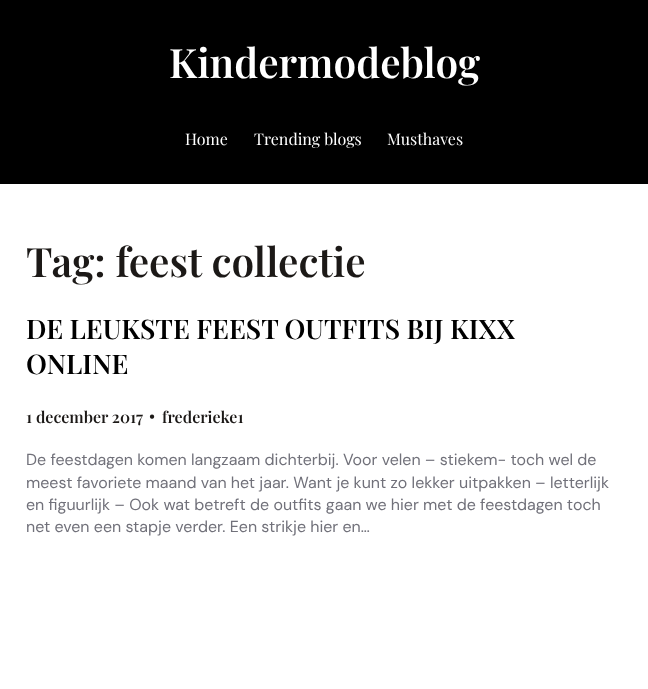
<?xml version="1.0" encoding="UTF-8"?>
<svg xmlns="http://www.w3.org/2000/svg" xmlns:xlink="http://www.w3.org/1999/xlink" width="648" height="689">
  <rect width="100%" height="100%" fill="#ffffff" />
  <rect width="648" height="184" fill="#000000" />
  <text x="169" y="78" style="font-family: Playfair Display; font-size: 40.5px; font-weight: 600; fill: #ffffff">Kindermodeblog</text>
  <text x="185" y="145" style="font-family: Playfair Display; font-size: 16px; fill: #ffffff">Home</text>
  <text x="254" y="145" style="font-family: Playfair Display; font-size: 16px; fill: #ffffff">Trending blogs</text>
  <text x="387" y="145" style="font-family: Playfair Display; font-size: 16px; fill: #ffffff">Musthaves</text>
  <text x="26" y="277" style="font-family: Playfair Display; font-size: 40.5px; font-weight: 600; fill: #1c1917">Tag: feest collectie</text>
  <text x="26" y="339" style="font-family: Playfair Display; font-size: 27px; font-weight: 600; fill: #000000">DE LEUKSTE FEEST OUTFITS BIJ KIXX</text>
  <text x="26" y="374" style="font-family: Playfair Display; font-size: 27px; font-weight: 600; fill: #000000">ONLINE</text>
  <text x="26" y="423" style="font-family: Playfair Display; font-size: 16px; font-weight: 600; fill: #1c1917">1 december 2017</text>
  <text x="149" y="422" style="font-family: DM Sans; font-size: 16px; font-weight: 600; fill: #1c1917">•</text>
  <text x="162" y="423" style="font-family: Playfair Display; font-size: 16px; font-weight: 600; fill: #1c1917">frederieke1</text>
  <text x="26" y="465" style="font-family: DM Sans; font-size: 16px; fill: #71717a">De feestdagen komen langzaam dichterbij. Voor velen – stiekem- toch wel de</text>
  <text x="26" y="488" style="font-family: DM Sans; font-size: 16px; fill: #71717a">meest favoriete maand van het jaar. Want je kunt zo lekker uitpakken – letterlijk</text>
  <text x="26" y="510" style="font-family: DM Sans; font-size: 16px; fill: #71717a">en figuurlijk – Ook wat betreft de outfits gaan we hier met de feestdagen toch</text>
  <text x="26" y="532" style="font-family: DM Sans; font-size: 16px; fill: #71717a">net even een stapje verder. Een strikje hier en…</text>
</svg>
